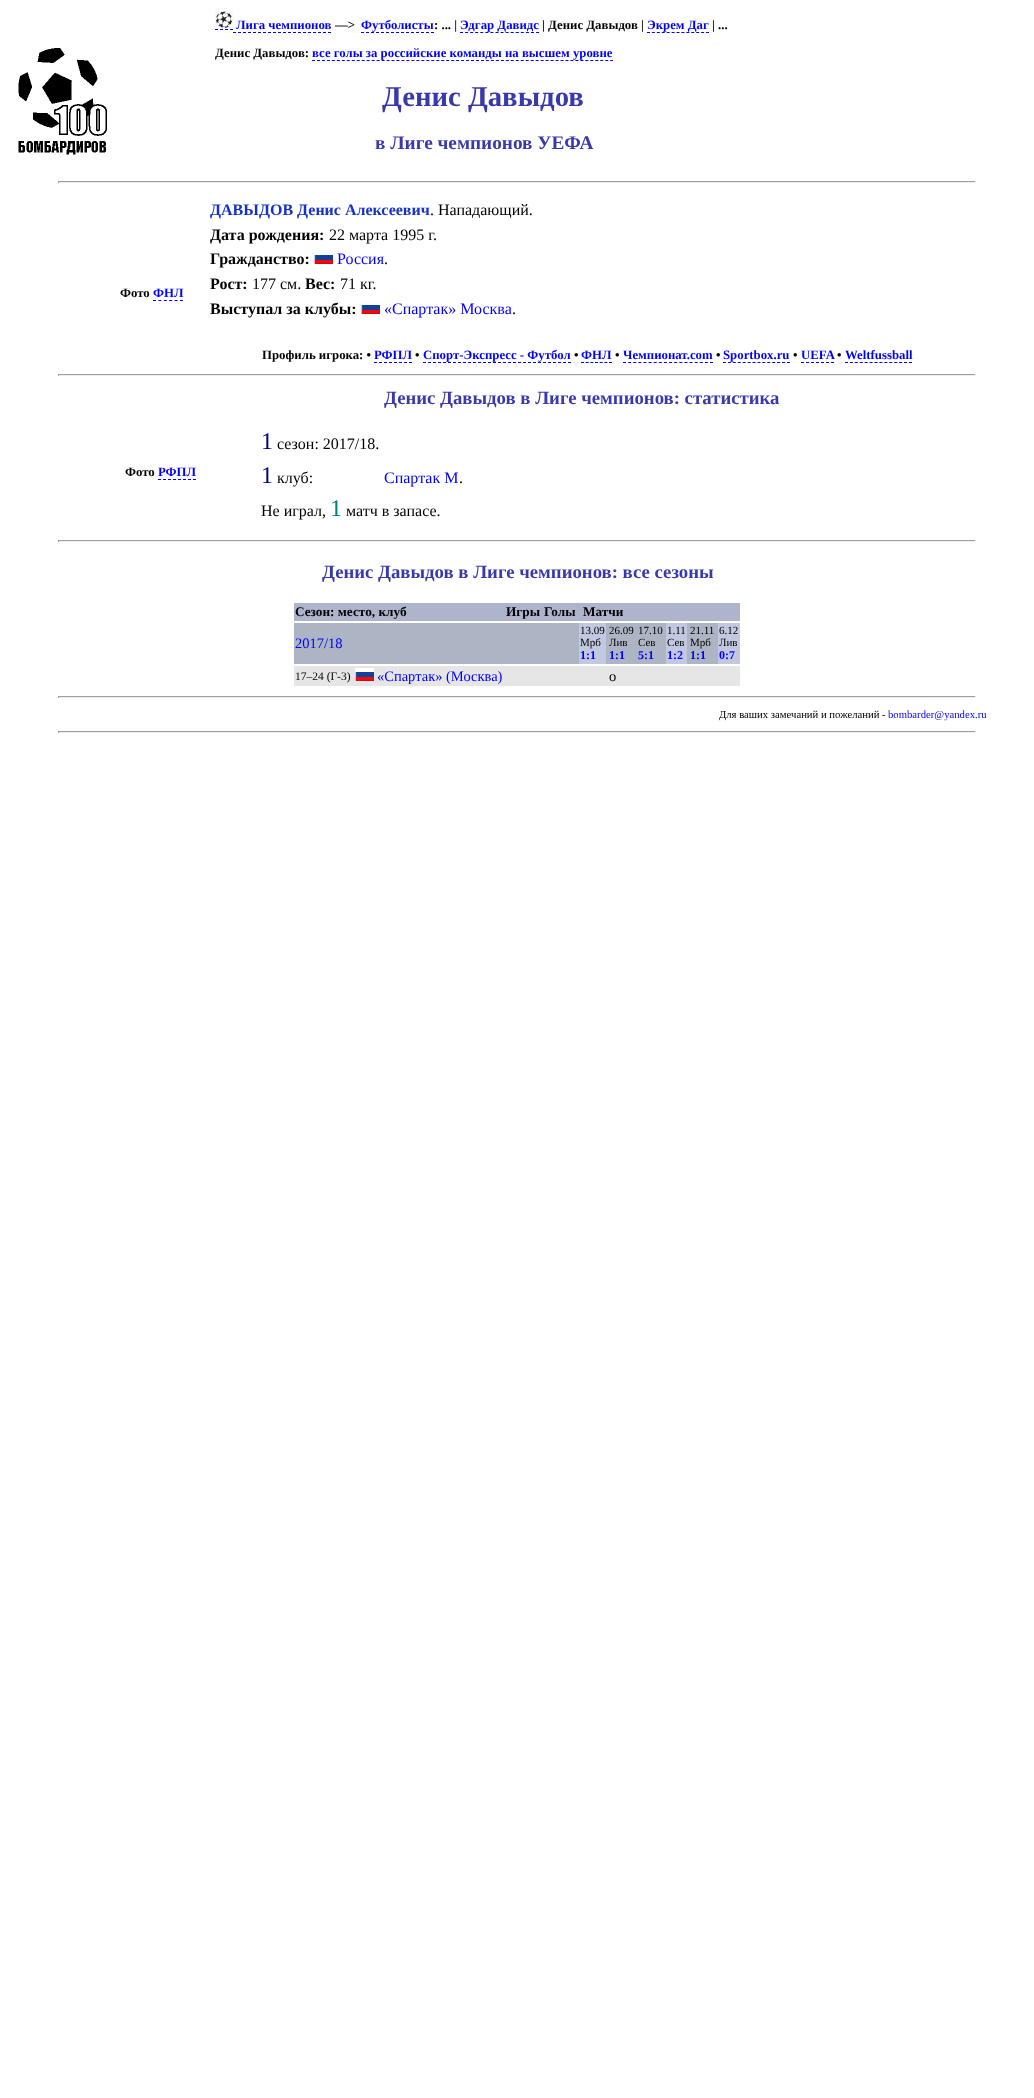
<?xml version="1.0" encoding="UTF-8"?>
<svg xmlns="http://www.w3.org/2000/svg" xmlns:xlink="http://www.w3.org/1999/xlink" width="1034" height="2098">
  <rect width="100%" height="100%" fill="#ffffff" />
  <image x="18" y="48" width="89" height="107" xlink:href="image1.png" />
  <image x="215" y="11" width="18" height="18" xlink:href="image2.png" />
  <path d="M 215 29.5 h 18" fill="none" stroke="#0000ff" stroke-dasharray="3 2" />
  <path d="M 233 32.5 h 98" fill="none" stroke="#0000ff" stroke-dasharray="3 2" />
  <path d="M 361 32.5 h 73" fill="none" stroke="#0000ff" stroke-dasharray="3 2" />
  <path d="M 460 32.5 h 79" fill="none" stroke="#0000ff" stroke-dasharray="3 2.07" />
  <path d="M 647 32.5 h 62" fill="none" stroke="#0000ff" stroke-dasharray="3 1.92" />
  <path d="M 312 60.5 h 301" fill="none" stroke="#0000ff" stroke-dasharray="3 1.97" />
  <rect x="58" y="181" width="918" height="1" fill="#9f9f9f" />
  <rect x="975" y="181" width="1" height="2" fill="#eeeeee" />
  <rect x="58" y="182" width="918" height="1" fill="#eeeeee" />
  <rect x="58" y="181" width="1" height="2" fill="#9f9f9f" />
  <path d="M 153 300.5 h 30" fill="none" stroke="#0000ff" stroke-dasharray="3 2.4" />
  <image x="314" y="255" width="19" height="9" xlink:href="image3.png" />
  <image x="361" y="305" width="19" height="9" xlink:href="image3.png" />
  <path d="M 374 362.5 h 38" fill="none" stroke="#0000ff" stroke-dasharray="3 2" />
  <path d="M 423 362.5 h 148" fill="none" stroke="#0000ff" stroke-dasharray="3 2" />
  <path d="M 581 362.5 h 31" fill="none" stroke="#0000ff" stroke-dasharray="3 1.67" />
  <path d="M 623 362.5 h 90" fill="none" stroke="#0000ff" stroke-dasharray="3 2.12" />
  <path d="M 723 362.5 h 67" fill="none" stroke="#0000ff" stroke-dasharray="3 1.92" />
  <path d="M 801 362.5 h 33" fill="none" stroke="#0000ff" stroke-dasharray="3 2" />
  <path d="M 845 362.5 h 67" fill="none" stroke="#0000ff" stroke-dasharray="3 1.92" />
  <rect x="58" y="374" width="918" height="1" fill="#9f9f9f" />
  <rect x="975" y="374" width="1" height="2" fill="#eeeeee" />
  <rect x="58" y="375" width="918" height="1" fill="#eeeeee" />
  <rect x="58" y="374" width="1" height="2" fill="#9f9f9f" />
  <path d="M 158 479.5 h 38" fill="none" stroke="#0000ff" stroke-dasharray="3 2" />
  <rect x="58" y="540" width="918" height="1" fill="#9f9f9f" />
  <rect x="975" y="540" width="1" height="2" fill="#eeeeee" />
  <rect x="58" y="541" width="918" height="1" fill="#eeeeee" />
  <rect x="58" y="540" width="1" height="2" fill="#9f9f9f" />
  <rect x="294" y="603" width="446" height="18" fill="#adb4cb" />
  <rect x="294" y="623" width="424" height="41" fill="#adb4c3" />
  <rect x="579" y="623" width="27" height="41" fill="#c1c8df" />
  <rect x="666" y="623" width="21" height="41" fill="#c1c8df" />
  <rect x="718" y="623" width="22" height="41" fill="#c1c8df" />
  <rect x="294" y="666" width="446" height="20" fill="#e6e6e6" />
  <image x="355" y="668" width="19" height="13" xlink:href="image4.png" />
  <rect x="58" y="696" width="918" height="1" fill="#9f9f9f" />
  <rect x="975" y="696" width="1" height="2" fill="#eeeeee" />
  <rect x="58" y="697" width="918" height="1" fill="#eeeeee" />
  <rect x="58" y="696" width="1" height="2" fill="#9f9f9f" />
  <rect x="58" y="731" width="918" height="1" fill="#9f9f9f" />
  <rect x="975" y="731" width="1" height="2" fill="#eeeeee" />
  <rect x="58" y="732" width="918" height="1" fill="#eeeeee" />
  <rect x="58" y="731" width="1" height="2" fill="#9f9f9f" />
  <text x="236" y="29" style="font-family: Liberation Serif; font-size: 12.8px; font-weight: bold; fill: #0000ff">Лига чемпионов</text>
  <text x="335" y="29" style="font-family: Liberation Serif; font-size: 12.8px; font-weight: bold; fill: #000000">—&gt;</text>
  <text x="361" y="29" style="font-family: Liberation Serif; font-size: 12.8px; font-weight: bold; fill: #0000ff">Футболисты</text>
  <text x="434" y="29" style="font-family: Liberation Serif; font-size: 12.8px; font-weight: bold; fill: #000000">: ... |</text>
  <text x="460" y="29" style="font-family: Liberation Serif; font-size: 12.8px; font-weight: bold; fill: #0000ff">Эдгар Давидс</text>
  <text x="542" y="29" style="font-family: Liberation Serif; font-size: 12.8px; font-weight: bold; fill: #000000">| Денис Давыдов |</text>
  <text x="647" y="29" style="font-family: Liberation Serif; font-size: 12.8px; font-weight: bold; fill: #0000ff">Экрем Даг</text>
  <text x="712" y="29" style="font-family: Liberation Serif; font-size: 12.8px; font-weight: bold; fill: #000000">| ...</text>
  <text x="215" y="57" style="font-family: Liberation Serif; font-size: 12.8px; font-weight: bold; fill: #000000">Денис Давыдов:</text>
  <text x="312" y="57" style="font-family: Liberation Serif; font-size: 12.8px; font-weight: bold; fill: #0000ff">все голы за российские команды на высшем уровне</text>
  <text x="382" y="106" style="font-family: Liberation Serif; font-size: 28.75px; font-weight: bold; fill: #3939ac">Денис Давыдов</text>
  <text x="375" y="149" style="font-family: Liberation Serif; font-size: 19.25px; font-weight: bold; fill: #3939ac">в Лиге чемпионов УЕФА</text>
  <text x="120" y="297" style="font-family: Liberation Serif; font-size: 12.8px; font-weight: bold; fill: #000000">Фото</text>
  <text x="153" y="297" style="font-family: Liberation Serif; font-size: 12.8px; font-weight: bold; fill: #0000ff">ФНЛ</text>
  <text x="210" y="215" style="font-family: Liberation Serif; font-size: 16px; font-weight: bold; fill: #1432c8">ДАВЫДОВ Денис Алексеевич</text>
  <text x="430" y="215" style="font-family: Liberation Serif; font-size: 16px; fill: #000000">. Нападающий.</text>
  <text x="210" y="240" style="font-family: Liberation Serif; font-size: 16px; font-weight: bold; fill: #000000">Дата рождения:</text>
  <text x="329" y="240" style="font-family: Liberation Serif; font-size: 16px; fill: #000000">22 марта 1995 г.</text>
  <text x="210" y="264" style="font-family: Liberation Serif; font-size: 16px; font-weight: bold; fill: #000000">Гражданство:</text>
  <text x="337" y="264" style="font-family: Liberation Serif; font-size: 16px; fill: #0000ff">Россия</text>
  <text x="384" y="264" style="font-family: Liberation Serif; font-size: 16px; fill: #000000">.</text>
  <text x="210" y="289" style="font-family: Liberation Serif; font-size: 16px; font-weight: bold; fill: #000000">Рост:</text>
  <text x="252" y="289" style="font-family: Liberation Serif; font-size: 16px; fill: #000000">177 см.</text>
  <text x="305" y="289" style="font-family: Liberation Serif; font-size: 16px; font-weight: bold; fill: #000000">Вес:</text>
  <text x="340" y="289" style="font-family: Liberation Serif; font-size: 16px; fill: #000000">71 кг.</text>
  <text x="210" y="314" style="font-family: Liberation Serif; font-size: 16px; font-weight: bold; fill: #000000">Выступал за клубы:</text>
  <text x="384" y="314" style="font-family: Liberation Serif; font-size: 16px; fill: #0000ff">«Спартак» Москва</text>
  <text x="512" y="314" style="font-family: Liberation Serif; font-size: 16px; fill: #000000">.</text>
  <text x="262" y="359" style="font-family: Liberation Serif; font-size: 12.8px; font-weight: bold; fill: #000000">Профиль игрока: •</text>
  <text x="374" y="359" style="font-family: Liberation Serif; font-size: 12.8px; font-weight: bold; fill: #0000ff">РФПЛ</text>
  <text x="415" y="359" style="font-family: Liberation Serif; font-size: 12.8px; font-weight: bold; fill: #000000">•</text>
  <text x="423" y="359" style="font-family: Liberation Serif; font-size: 12.8px; font-weight: bold; fill: #0000ff">Спорт-Экспресс - Футбол</text>
  <text x="574" y="359" style="font-family: Liberation Serif; font-size: 12.8px; font-weight: bold; fill: #000000">•</text>
  <text x="581" y="359" style="font-family: Liberation Serif; font-size: 12.8px; font-weight: bold; fill: #0000ff">ФНЛ</text>
  <text x="615" y="359" style="font-family: Liberation Serif; font-size: 12.8px; font-weight: bold; fill: #000000">•</text>
  <text x="623" y="359" style="font-family: Liberation Serif; font-size: 12.8px; font-weight: bold; fill: #0000ff">Чемпионат.com</text>
  <text x="716" y="359" style="font-family: Liberation Serif; font-size: 12.8px; font-weight: bold; fill: #000000">•</text>
  <text x="723" y="359" style="font-family: Liberation Serif; font-size: 12.8px; font-weight: bold; fill: #0000ff">Sportbox.ru</text>
  <text x="793" y="359" style="font-family: Liberation Serif; font-size: 12.8px; font-weight: bold; fill: #000000">•</text>
  <text x="801" y="359" style="font-family: Liberation Serif; font-size: 12.8px; font-weight: bold; fill: #0000ff">UEFA</text>
  <text x="837" y="359" style="font-family: Liberation Serif; font-size: 12.8px; font-weight: bold; fill: #000000">•</text>
  <text x="845" y="359" style="font-family: Liberation Serif; font-size: 12.8px; font-weight: bold; fill: #0000ff">Weltfussball</text>
  <text x="125" y="476" style="font-family: Liberation Serif; font-size: 12.8px; font-weight: bold; fill: #000000">Фото</text>
  <text x="158" y="476" style="font-family: Liberation Serif; font-size: 12.8px; font-weight: bold; fill: #0000ff">РФПЛ</text>
  <text x="384" y="404" style="font-family: Liberation Serif; font-size: 18.75px; font-weight: bold; fill: #3939ac">Денис Давыдов в Лиге чемпионов: статистика</text>
  <text x="261" y="449" style="font-family: Liberation Serif; font-size: 24px; fill: #00007f">1</text>
  <text x="277" y="449" style="font-family: Liberation Serif; font-size: 16px; fill: #000000">сезон: 2017/18.</text>
  <text x="261" y="483" style="font-family: Liberation Serif; font-size: 24px; fill: #00007f">1</text>
  <text x="277" y="483" style="font-family: Liberation Serif; font-size: 16px; fill: #000000">клуб:</text>
  <text x="384" y="483" style="font-family: Liberation Serif; font-size: 16px; fill: #0000ff">Спартак М</text>
  <text x="459" y="483" style="font-family: Liberation Serif; font-size: 16px; fill: #000000">.</text>
  <text x="261" y="516" style="font-family: Liberation Serif; font-size: 16px; fill: #000000">Не играл,</text>
  <text x="330" y="516" style="font-family: Liberation Serif; font-size: 24px; fill: #007f7f">1</text>
  <text x="346" y="516" style="font-family: Liberation Serif; font-size: 16px; fill: #000000">матч в запасе.</text>
  <text x="322" y="578" style="font-family: Liberation Serif; font-size: 18.75px; font-weight: bold; fill: #3939ac">Денис Давыдов в Лиге чемпионов: все сезоны</text>
  <text x="295" y="616" style="font-family: Liberation Serif; font-size: 13.25px; font-weight: bold; fill: #000000">Сезон: место, клуб</text>
  <text x="506" y="616" style="font-family: Liberation Serif; font-size: 13.25px; font-weight: bold; fill: #000000">Игры</text>
  <text x="544" y="616" style="font-family: Liberation Serif; font-size: 13.25px; font-weight: bold; fill: #000000">Голы</text>
  <text x="583" y="616" style="font-family: Liberation Serif; font-size: 13.25px; font-weight: bold; fill: #000000">Матчи</text>
  <text x="295" y="648" style="font-family: Liberation Serif; font-size: 14.5px; fill: #0000ff">2017/18</text>
  <text x="580" y="634" style="font-family: Liberation Serif; font-size: 11px; fill: #000000">13.09</text>
  <text x="580" y="646" style="font-family: Liberation Serif; font-size: 11px; fill: #000000">Мрб</text>
  <text x="580" y="659" style="font-family: Liberation Serif; font-size: 12px; font-weight: bold; fill: #0000ff">1:1</text>
  <text x="609" y="634" style="font-family: Liberation Serif; font-size: 11px; fill: #000000">26.09</text>
  <text x="609" y="646" style="font-family: Liberation Serif; font-size: 11px; fill: #000000">Лив</text>
  <text x="609" y="659" style="font-family: Liberation Serif; font-size: 12px; font-weight: bold; fill: #0000ff">1:1</text>
  <text x="638" y="634" style="font-family: Liberation Serif; font-size: 11px; fill: #000000">17.10</text>
  <text x="638" y="646" style="font-family: Liberation Serif; font-size: 11px; fill: #000000">Сев</text>
  <text x="638" y="659" style="font-family: Liberation Serif; font-size: 12px; font-weight: bold; fill: #0000ff">5:1</text>
  <text x="667" y="634" style="font-family: Liberation Serif; font-size: 11px; fill: #000000">1.11</text>
  <text x="667" y="646" style="font-family: Liberation Serif; font-size: 11px; fill: #000000">Сев</text>
  <text x="667" y="659" style="font-family: Liberation Serif; font-size: 12px; font-weight: bold; fill: #0000ff">1:2</text>
  <text x="690" y="634" style="font-family: Liberation Serif; font-size: 11px; fill: #000000">21.11</text>
  <text x="690" y="646" style="font-family: Liberation Serif; font-size: 11px; fill: #000000">Мрб</text>
  <text x="690" y="659" style="font-family: Liberation Serif; font-size: 12px; font-weight: bold; fill: #0000ff">1:1</text>
  <text x="719" y="634" style="font-family: Liberation Serif; font-size: 11px; fill: #000000">6.12</text>
  <text x="719" y="646" style="font-family: Liberation Serif; font-size: 11px; fill: #000000">Лив</text>
  <text x="719" y="659" style="font-family: Liberation Serif; font-size: 12px; font-weight: bold; fill: #0000ff">0:7</text>
  <text x="295" y="680" style="font-family: Liberation Serif; font-size: 11.5px; fill: #000000">17–24 (Г-3)</text>
  <text x="377" y="681" style="font-family: Liberation Serif; font-size: 14.5px; fill: #0000ff">«Спартак» (Москва)</text>
  <text x="609" y="681" style="font-family: Liberation Serif; font-size: 14.5px; fill: #000000">о</text>
  <text x="719" y="718" style="font-family: Liberation Serif; font-size: 10.7px; fill: #000000">Для ваших замечаний и пожеланий -</text>
  <text x="888" y="718" style="font-family: Liberation Serif; font-size: 10.7px; fill: #0000ff">bombarder@yandex.ru</text>
</svg>
